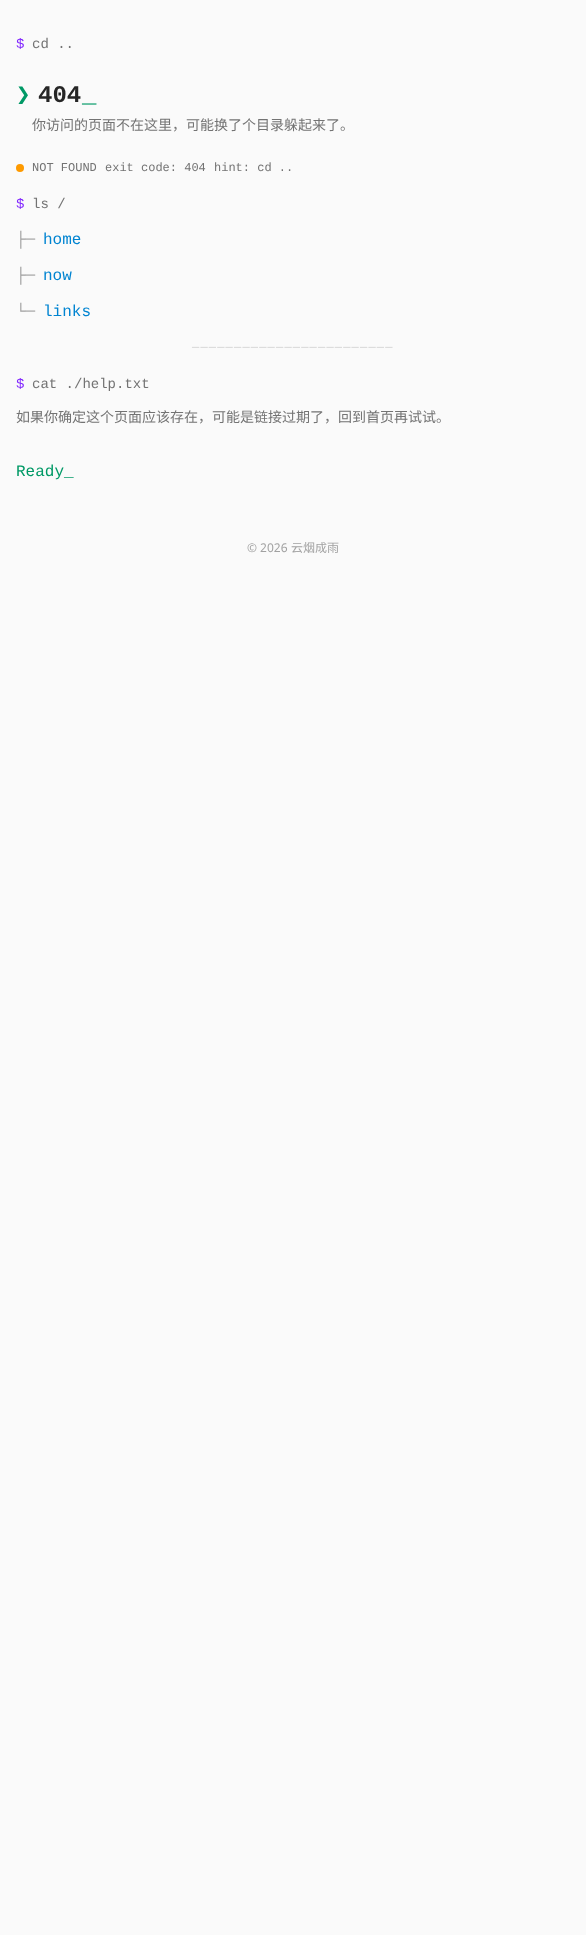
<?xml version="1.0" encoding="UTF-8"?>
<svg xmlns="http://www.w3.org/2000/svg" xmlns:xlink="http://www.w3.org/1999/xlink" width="586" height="1935">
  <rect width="100%" height="100%" fill="#fafafa" />
  <circle cx="20" cy="168" r="4" fill="#fe9a00" />
  <text x="16" y="48" style="font-family: Liberation Mono; font-size: 14px; fill: #7f22fe">$</text>
  <text x="32" y="48" style="font-family: Liberation Mono; font-size: 14px; fill: #737373">cd ..</text>
  <text x="16" y="102" style="font-family: DejaVu Sans Mono; font-size: 24px; font-weight: bold; fill: #009966">❯</text>
  <text x="38" y="102" style="font-family: Liberation Mono; font-size: 24px; font-weight: bold; fill: #262626">404</text>
  <text x="82" y="102" style="font-family: Liberation Mono; font-size: 24px; font-weight: bold; fill: #009966">_</text>
  <text x="32" y="130" style="font-family: Noto Sans CJK SC; font-size: 14px; fill: #737373">你访问的页面不在这里，可能换了个目录躲起来了。</text>
  <text x="32" y="171" style="font-family: Liberation Mono; font-size: 12px; fill: #737373">NOT FOUND</text>
  <text x="105" y="171" style="font-family: Liberation Mono; font-size: 12px; fill: #737373">exit code: 404</text>
  <text x="214" y="171" style="font-family: Liberation Mono; font-size: 12px; fill: #737373">hint: cd ..</text>
  <text x="16" y="208" style="font-family: Liberation Mono; font-size: 14px; fill: #7f22fe">$</text>
  <text x="32" y="208" style="font-family: Liberation Mono; font-size: 14px; fill: #737373">ls /</text>
  <text x="16" y="244" style="font-family: Liberation Mono; font-size: 16px; fill: #a1a1a1">├─</text>
  <text x="43" y="244" style="font-family: Liberation Mono; font-size: 16px; fill: #0084d1">home</text>
  <text x="16" y="280" style="font-family: Liberation Mono; font-size: 16px; fill: #a1a1a1">├─</text>
  <text x="43" y="280" style="font-family: Liberation Mono; font-size: 16px; fill: #0084d1">now</text>
  <text x="16" y="316" style="font-family: Liberation Mono; font-size: 16px; fill: #a1a1a1">└─</text>
  <text x="43" y="316" style="font-family: Liberation Mono; font-size: 16px; fill: #0084d1">links</text>
  <text x="192" y="351" style="font-family: Liberation Mono; font-size: 12px; letter-spacing: 1.2px; fill: #d4d4d4">────────────────────────</text>
  <text x="16" y="388" style="font-family: Liberation Mono; font-size: 14px; fill: #7f22fe">$</text>
  <text x="32" y="388" style="font-family: Liberation Mono; font-size: 14px; fill: #737373">cat ./help.txt</text>
  <text x="16" y="422" style="font-family: Noto Sans CJK SC; font-size: 14px; fill: #737373">如果你确定这个页面应该存在，可能是链接过期了，回到首页再试试。</text>
  <text x="16" y="476" style="font-family: Liberation Mono; font-size: 16px; fill: #009966">Ready_</text>
  <text x="247" y="552" style="font-family: Noto Sans; font-size: 12px; fill: #a1a1a1">© 2026</text>
  <text x="291" y="552" style="font-family: Noto Sans CJK SC; font-size: 12px; fill: #a1a1a1">云烟成雨</text>
</svg>
